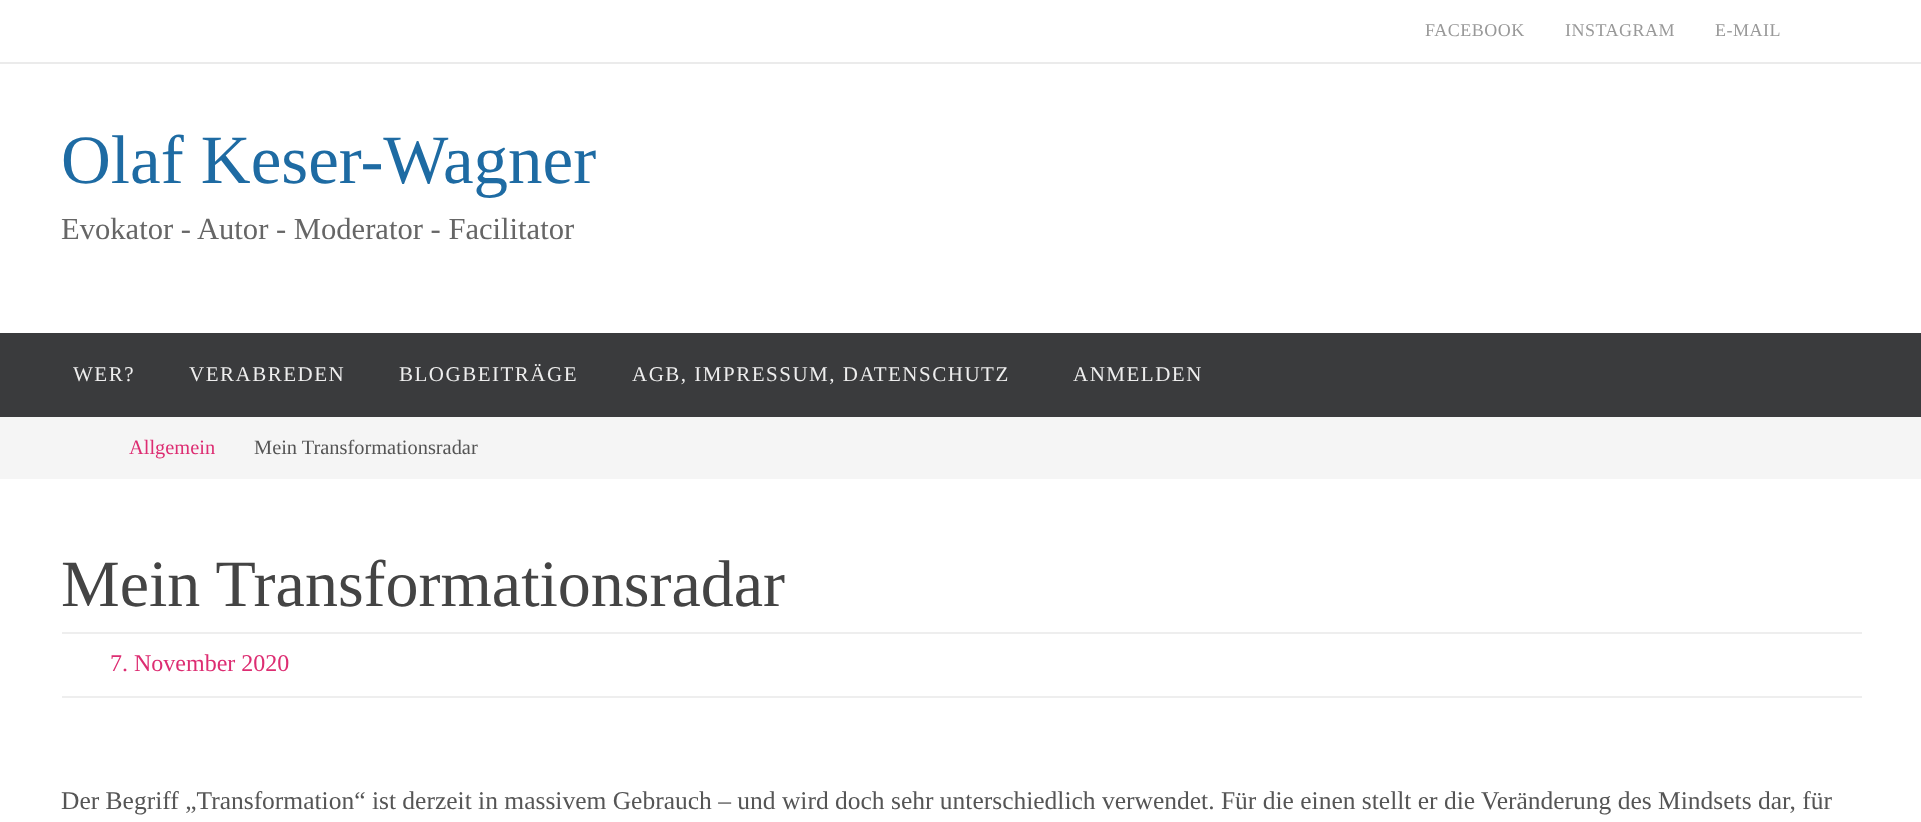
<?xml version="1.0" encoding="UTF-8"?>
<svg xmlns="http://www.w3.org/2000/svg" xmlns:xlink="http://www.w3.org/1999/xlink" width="1921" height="822">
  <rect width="100%" height="100%" fill="#ffffff" />
  <rect y="62" width="1921" height="2" fill="#ebebeb" />
  <rect y="333" width="1921" height="84" fill="#3a3b3d" />
  <rect y="417" width="1921" height="62" fill="#f5f5f5" />
  <rect x="62" y="632" width="1800" height="2" fill="#eeeeee" />
  <rect x="62" y="696" width="1800" height="2" fill="#eeeeee" />
  <text x="1425" y="36" style="font-family: Liberation Serif; font-size: 18px; letter-spacing: 0.5px; fill: #999999">FACEBOOK</text>
  <text x="1565" y="36" style="font-family: Liberation Serif; font-size: 18px; letter-spacing: 0.5px; fill: #999999">INSTAGRAM</text>
  <text x="1715" y="36" style="font-family: Liberation Serif; font-size: 18px; letter-spacing: 0.5px; fill: #999999">E-MAIL</text>
  <text x="61" y="183" style="font-family: Liberation Serif; font-size: 69px; fill: #1e6ba3">Olaf Keser-Wagner</text>
  <text x="61" y="239" style="font-family: Liberation Serif; font-size: 30.6px; fill: #666666">Evokator - Autor - Moderator - Facilitator</text>
  <text x="73" y="381" style="font-family: Liberation Serif; font-size: 21px; letter-spacing: 1.5px; fill: #eeeeee">WER?</text>
  <text x="189" y="381" style="font-family: Liberation Serif; font-size: 21px; letter-spacing: 1.5px; fill: #eeeeee">VERABREDEN</text>
  <text x="399" y="381" style="font-family: Liberation Serif; font-size: 21px; letter-spacing: 1.5px; fill: #eeeeee">BLOGBEITRÄGE</text>
  <text x="632" y="381" style="font-family: Liberation Serif; font-size: 21px; letter-spacing: 1.5px; fill: #eeeeee">AGB, IMPRESSUM, DATENSCHUTZ</text>
  <text x="1073" y="381" style="font-family: Liberation Serif; font-size: 21px; letter-spacing: 1.5px; fill: #eeeeee">ANMELDEN</text>
  <text x="129" y="454" style="font-family: Liberation Serif; font-size: 20.4px; fill: #dd2d72">Allgemein</text>
  <text x="254" y="454" style="font-family: Liberation Serif; font-size: 20.4px; fill: #555555">Mein Transformationsradar</text>
  <text x="61" y="606" style="font-family: Liberation Serif; font-size: 66px; fill: #444444">Mein Transformationsradar</text>
  <text x="110" y="671" style="font-family: Liberation Serif; font-size: 24px; fill: #dd2d72">7. November 2020</text>
  <text x="61" y="809" style="font-family: Liberation Serif; font-size: 25.5px; fill: #555555">Der Begriff „Transformation“ ist derzeit in massivem Gebrauch – und wird doch sehr unterschiedlich verwendet. Für die einen stellt er die Veränderung des Mindsets dar, für</text>
</svg>
